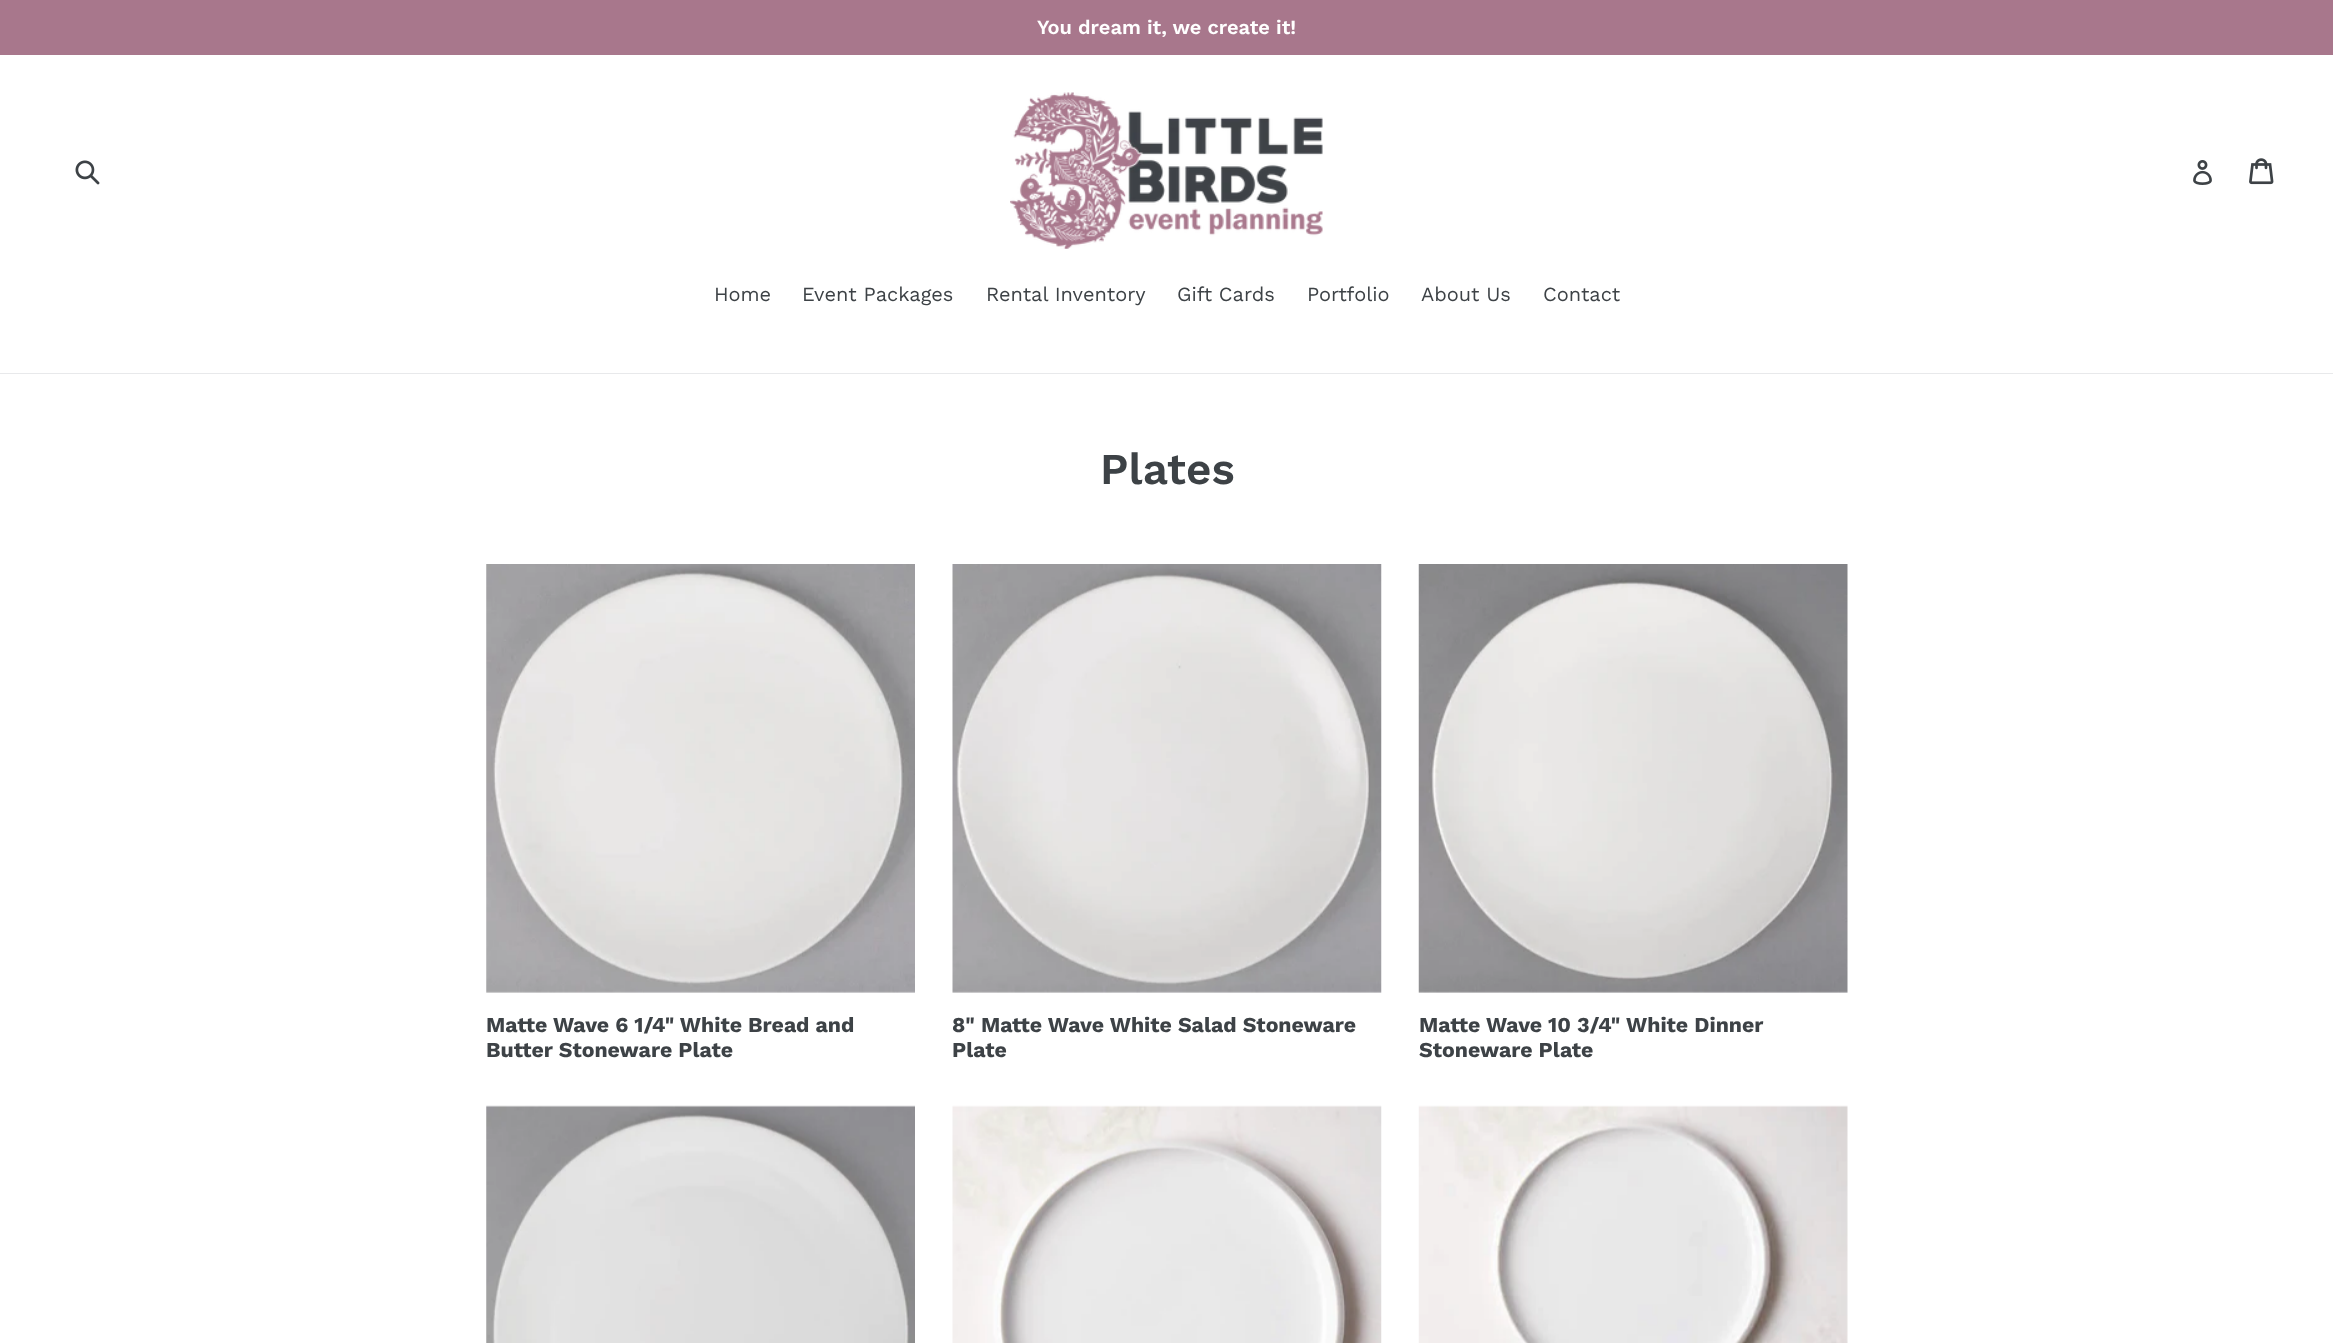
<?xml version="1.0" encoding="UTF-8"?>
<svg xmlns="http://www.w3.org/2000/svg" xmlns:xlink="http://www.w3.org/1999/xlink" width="2333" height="1343">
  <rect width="100%" height="100%" fill="#ffffff" />
  <rect width="2333" height="55" fill="#a8778c" />
  <image x="75" y="160" width="25" height="25" xlink:href="image1.png" />
  <image x="1010" y="92" width="313" height="157" xlink:href="image2.png" />
  <image x="2193" y="160" width="19" height="25" xlink:href="image3.png" />
  <image x="2249" y="158" width="25" height="27" xlink:href="image4.png" />
  <rect y="373" width="2333" height="1" fill="#e8e9eb" />
  <image x="486" y="564" width="429" height="429" xlink:href="image5.png" />
  <image x="952" y="564" width="430" height="429" xlink:href="image6.png" />
  <image x="1418" y="564" width="430" height="429" xlink:href="image7.png" />
  <image x="486" y="1105" width="429" height="238" xlink:href="image8.png" />
  <image x="952" y="1105" width="430" height="238" xlink:href="image9.png" />
  <image x="1418" y="1105" width="430" height="238" xlink:href="image10.png" />
  <text x="1037" y="34" style="font-family: Work Sans; font-size: 20px; font-weight: 600; fill: #ffffff">You dream it, we create it!</text>
  <text x="714" y="301" style="font-family: Work Sans; font-size: 20px; fill: #3d4246">Home</text>
  <text x="802" y="301" style="font-family: Work Sans; font-size: 20px; fill: #3d4246">Event Packages</text>
  <text x="986" y="301" style="font-family: Work Sans; font-size: 20px; fill: #3d4246">Rental Inventory</text>
  <text x="1177" y="301" style="font-family: Work Sans; font-size: 20px; fill: #3d4246">Gift Cards</text>
  <text x="1307" y="301" style="font-family: Work Sans; font-size: 20px; fill: #3d4246">Portfolio</text>
  <text x="1421" y="301" style="font-family: Work Sans; font-size: 20px; fill: #3d4246">About Us</text>
  <text x="1543" y="301" style="font-family: Work Sans; font-size: 20px; fill: #3d4246">Contact</text>
  <text x="1100" y="484" style="font-family: Work Sans; font-size: 44px; font-weight: 600; fill: #3d4246">Plates</text>
  <text x="486" y="1032" style="font-family: Work Sans; font-size: 21.25px; font-weight: bold; fill: #3d4246">Matte Wave 6 1/4" White Bread and</text>
  <text x="486" y="1057" style="font-family: Work Sans; font-size: 21.25px; font-weight: bold; fill: #3d4246">Butter Stoneware Plate</text>
  <text x="952" y="1032" style="font-family: Work Sans; font-size: 21.25px; font-weight: bold; fill: #3d4246">8" Matte Wave White Salad Stoneware</text>
  <text x="952" y="1057" style="font-family: Work Sans; font-size: 21.25px; font-weight: bold; fill: #3d4246">Plate</text>
  <text x="1419" y="1032" style="font-family: Work Sans; font-size: 21.25px; font-weight: bold; fill: #3d4246">Matte Wave 10 3/4" White Dinner</text>
  <text x="1419" y="1057" style="font-family: Work Sans; font-size: 21.25px; font-weight: bold; fill: #3d4246">Stoneware Plate</text>
</svg>
